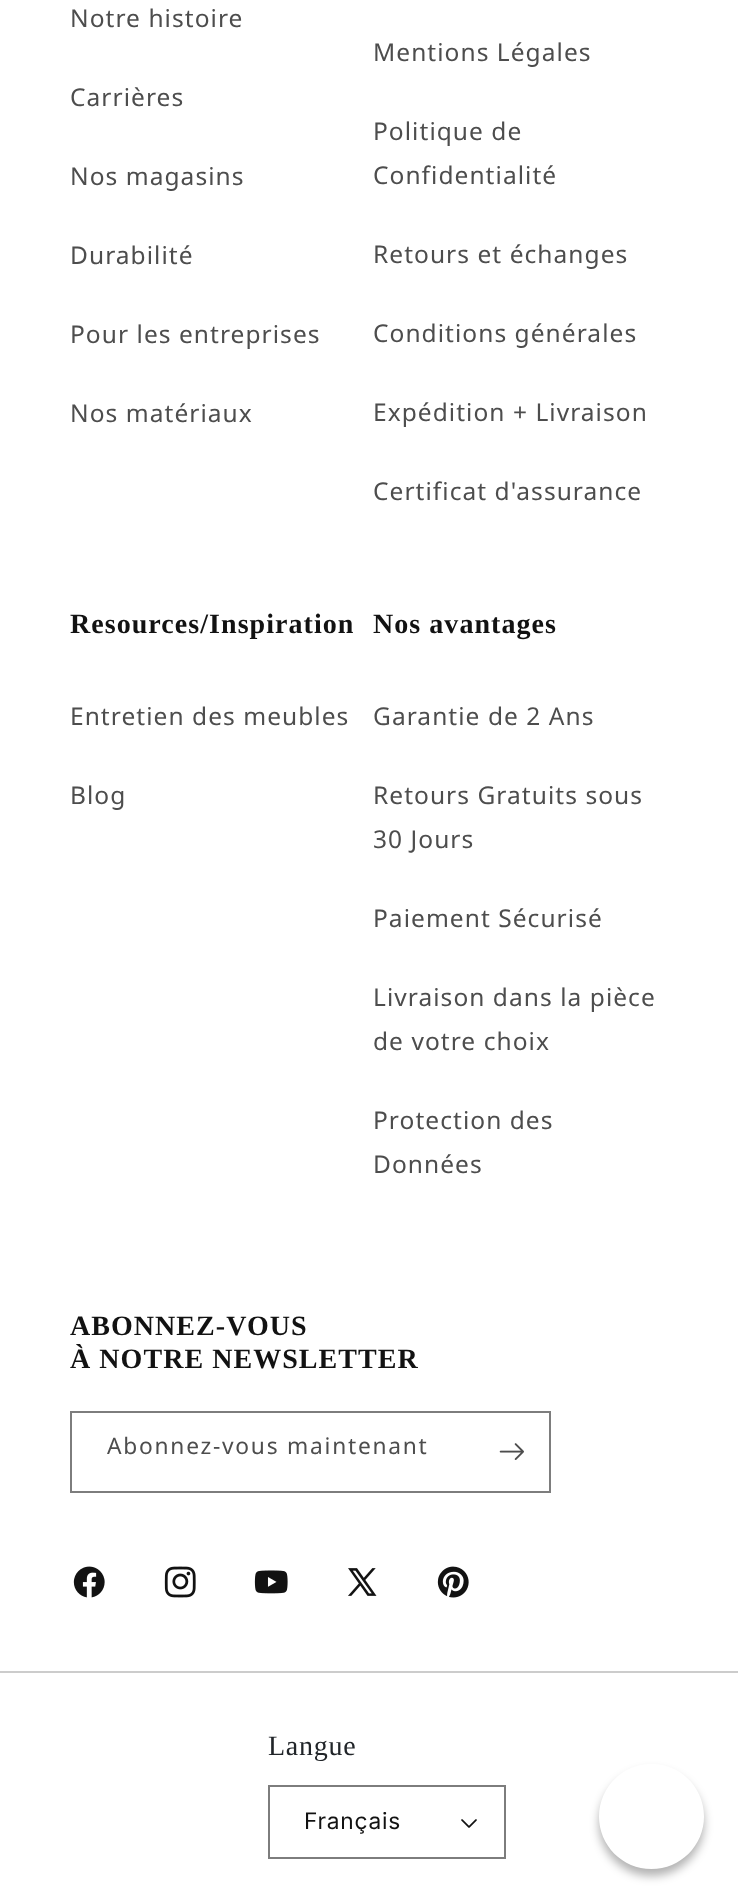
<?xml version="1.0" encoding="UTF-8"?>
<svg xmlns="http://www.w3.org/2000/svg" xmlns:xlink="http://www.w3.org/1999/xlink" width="738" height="1904">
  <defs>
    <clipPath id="clip1"><path d="M 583 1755 h 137 v 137 h -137 z m 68.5 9 c 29 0 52.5 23.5 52.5 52.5 c 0 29 -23.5 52.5 -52.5 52.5 c -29 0 -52.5 -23.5 -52.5 -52.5 c 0 -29 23.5 -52.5 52.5 -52.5 z" clip-rule="evenodd" /></clipPath>
  </defs>
  <rect width="100%" height="100%" fill="#ffffff" />
  <rect y="1671" width="738" height="2" fill="#cccccc" />
  <rect x="71" y="1412" width="479" height="80" fill="none" stroke="#7d7d7d" stroke-width="2" />
  <image x="499" y="1443" width="25" height="17" xlink:href="image1.png" />
  <image x="73" y="1566" width="32" height="32" xlink:href="image2.png" />
  <image x="164" y="1566" width="32" height="32" xlink:href="image3.png" />
  <image x="254" y="1570" width="34" height="24" xlink:href="image4.png" />
  <image x="348" y="1568" width="29" height="28" xlink:href="image5.png" />
  <image x="437" y="1566" width="32" height="32" xlink:href="image6.png" />
  <image x="461" y="1819" width="16" height="9" xlink:href="image7.png" />
  <rect x="269" y="1786" width="236" height="72" fill="none" stroke="#7d7d7d" stroke-width="2" />
  <g clip-path="url(#clip1)">
    <rect x="599" y="1771" width="105" height="105" rx="52.5" fill="#000000" fill-opacity="0.3" filter="blur(5px)" />
  </g>
  <text x="70" y="27" style="font-family: Noto Sans; font-size: 24.5px; letter-spacing: 1.05px; fill: #4d4d4d">Notre histoire</text>
  <text x="70" y="106" style="font-family: Noto Sans; font-size: 24.5px; letter-spacing: 1.05px; fill: #4d4d4d">Carrières</text>
  <text x="70" y="185" style="font-family: Noto Sans; font-size: 24.5px; letter-spacing: 1.05px; fill: #4d4d4d">Nos magasins</text>
  <text x="70" y="264" style="font-family: Noto Sans; font-size: 24.5px; letter-spacing: 1.05px; fill: #4d4d4d">Durabilité</text>
  <text x="70" y="343" style="font-family: Noto Sans; font-size: 24.5px; letter-spacing: 1.05px; fill: #4d4d4d">Pour les entreprises</text>
  <text x="70" y="422" style="font-family: Noto Sans; font-size: 24.5px; letter-spacing: 1.05px; fill: #4d4d4d">Nos matériaux</text>
  <text x="373" y="61" style="font-family: Noto Sans; font-size: 24.5px; letter-spacing: 1.05px; fill: #4d4d4d">Mentions Légales</text>
  <text x="373" y="140" style="font-family: Noto Sans; font-size: 24.5px; letter-spacing: 1.05px; fill: #4d4d4d">Politique de</text>
  <text x="373" y="184" style="font-family: Noto Sans; font-size: 24.5px; letter-spacing: 1.05px; fill: #4d4d4d">Confidentialité</text>
  <text x="373" y="263" style="font-family: Noto Sans; font-size: 24.5px; letter-spacing: 1.05px; fill: #4d4d4d">Retours et échanges</text>
  <text x="373" y="342" style="font-family: Noto Sans; font-size: 24.5px; letter-spacing: 1.05px; fill: #4d4d4d">Conditions générales</text>
  <text x="373" y="421" style="font-family: Noto Sans; font-size: 24.5px; letter-spacing: 1.05px; fill: #4d4d4d">Expédition + Livraison</text>
  <text x="373" y="500" style="font-family: Noto Sans; font-size: 24.5px; letter-spacing: 1.05px; fill: #4d4d4d">Certificat d'assurance</text>
  <text x="70" y="633" style="font-family: Liberation Serif; font-size: 28px; font-weight: bold; letter-spacing: 1.05px; fill: #121212">Resources/Inspiration</text>
  <text x="70" y="725" style="font-family: Noto Sans; font-size: 24.5px; letter-spacing: 1.05px; fill: #4d4d4d">Entretien des meubles</text>
  <text x="70" y="804" style="font-family: Noto Sans; font-size: 24.5px; letter-spacing: 1.05px; fill: #4d4d4d">Blog</text>
  <text x="373" y="633" style="font-family: Liberation Serif; font-size: 28px; font-weight: bold; letter-spacing: 1.05px; fill: #121212">Nos avantages</text>
  <text x="373" y="725" style="font-family: Noto Sans; font-size: 24.5px; letter-spacing: 1.05px; fill: #4d4d4d">Garantie de 2 Ans</text>
  <text x="373" y="804" style="font-family: Noto Sans; font-size: 24.5px; letter-spacing: 1.05px; fill: #4d4d4d">Retours Gratuits sous</text>
  <text x="373" y="848" style="font-family: Noto Sans; font-size: 24.5px; letter-spacing: 1.05px; fill: #4d4d4d">30 Jours</text>
  <text x="373" y="927" style="font-family: Noto Sans; font-size: 24.5px; letter-spacing: 1.05px; fill: #4d4d4d">Paiement Sécurisé</text>
  <text x="373" y="1006" style="font-family: Noto Sans; font-size: 24.5px; letter-spacing: 1.05px; fill: #4d4d4d">Livraison dans la pièce</text>
  <text x="373" y="1050" style="font-family: Noto Sans; font-size: 24.5px; letter-spacing: 1.05px; fill: #4d4d4d">de votre choix</text>
  <text x="373" y="1129" style="font-family: Noto Sans; font-size: 24.5px; letter-spacing: 1.05px; fill: #4d4d4d">Protection des</text>
  <text x="373" y="1173" style="font-family: Noto Sans; font-size: 24.5px; letter-spacing: 1.05px; fill: #4d4d4d">Données</text>
  <text x="70" y="1335" style="font-family: Liberation Serif; font-size: 28px; font-weight: bold; letter-spacing: 1.05px; fill: #121212">ABONNEZ-VOUS</text>
  <text x="70" y="1368" style="font-family: Liberation Serif; font-size: 28px; font-weight: bold; letter-spacing: 1.05px; fill: #121212">À NOTRE NEWSLETTER</text>
  <text x="107" y="1454" style="font-family: Noto Sans; font-size: 22.75px; letter-spacing: 1.75px; fill: #4d4d4d">Abonnez-vous maintenant</text>
  <text x="268" y="1755" style="font-family: Liberation Serif; font-size: 28px; letter-spacing: 0.75px; fill: #212529">Langue</text>
  <text x="304" y="1829" style="font-family: Inter; font-size: 22.75px; letter-spacing: 0.75px; fill: #121212">Français</text>
</svg>
